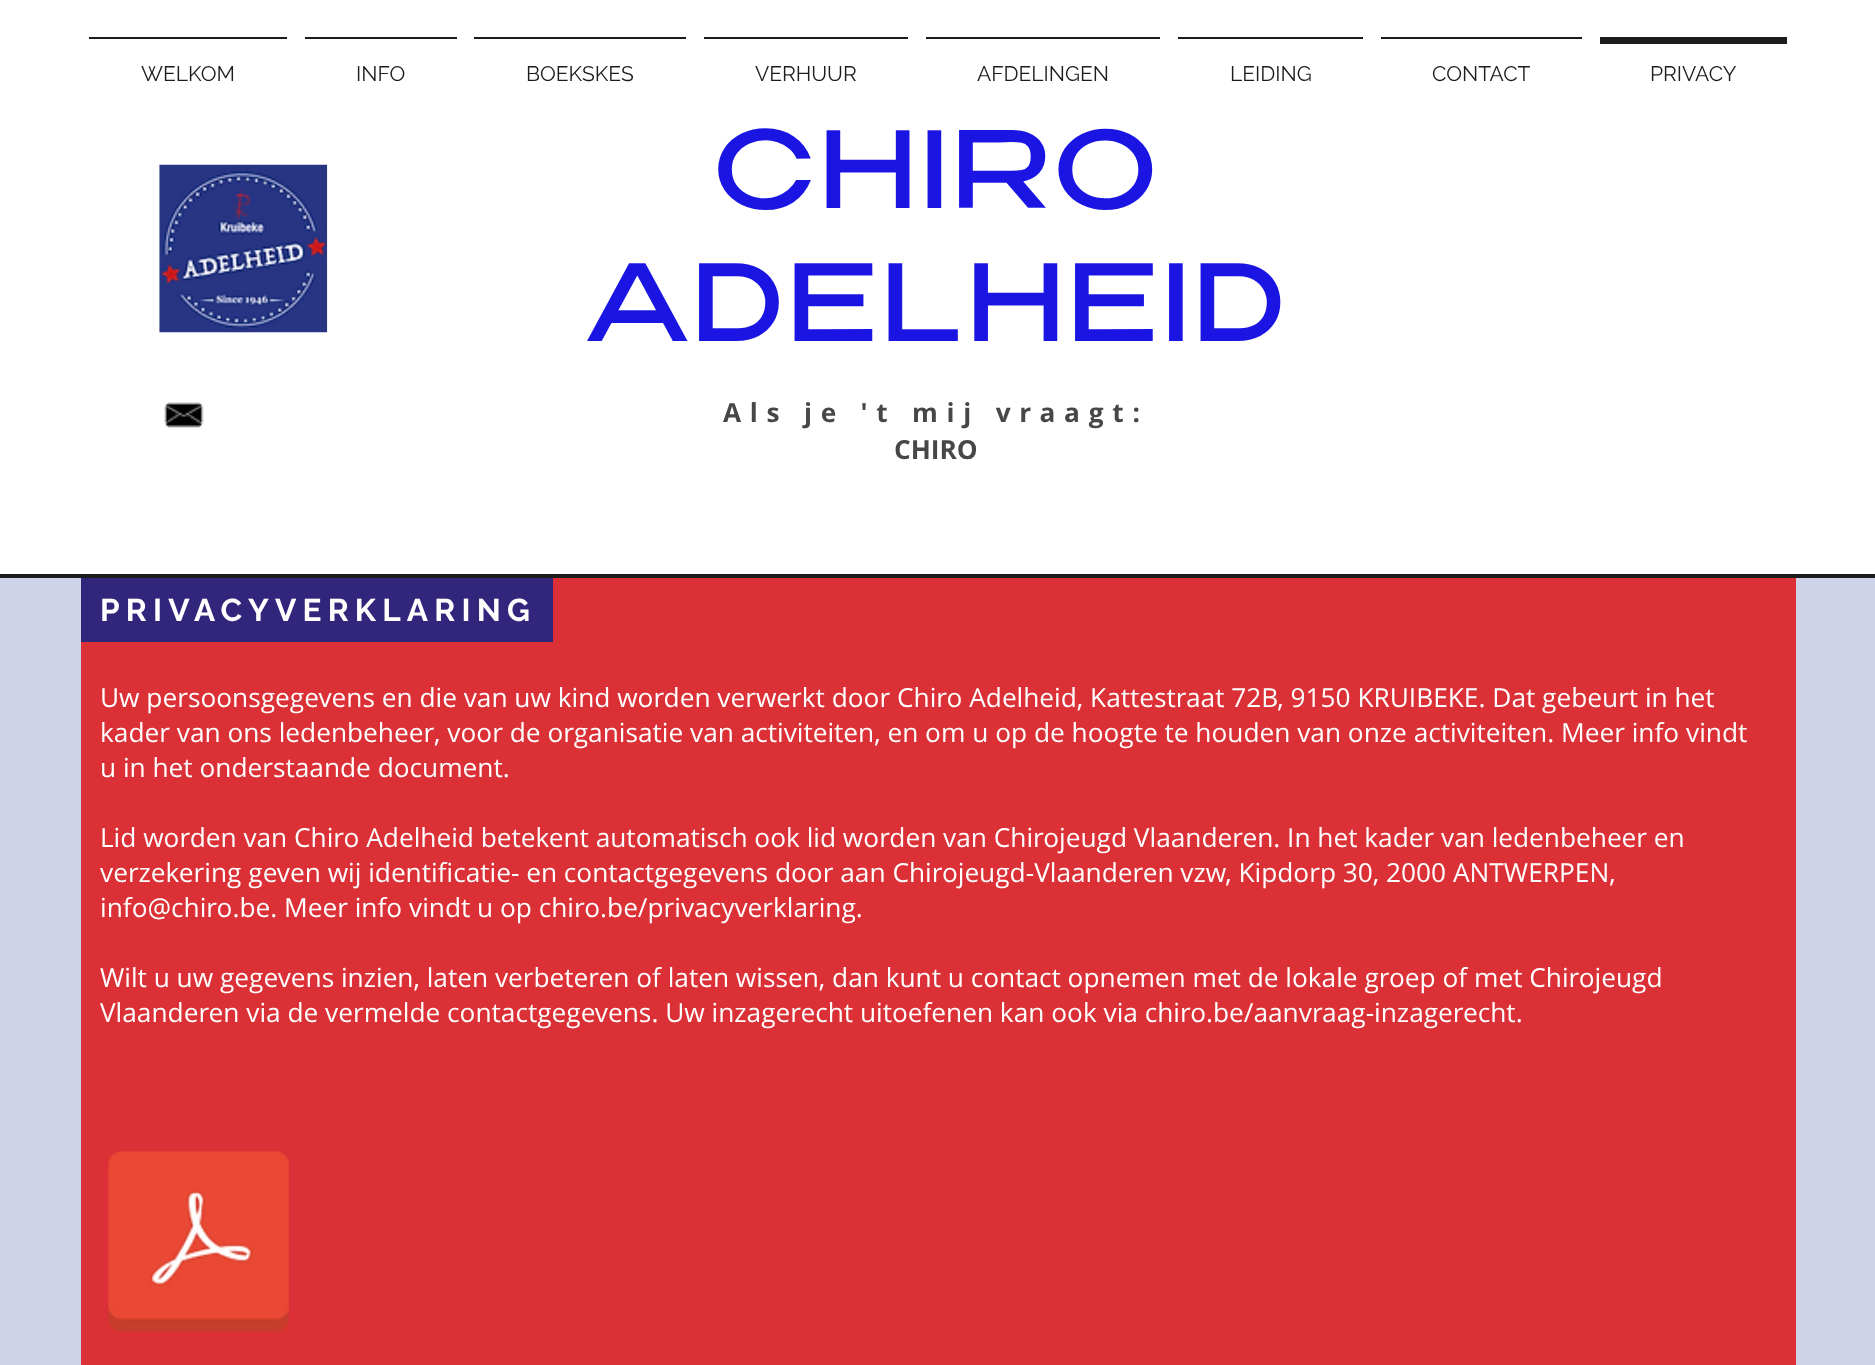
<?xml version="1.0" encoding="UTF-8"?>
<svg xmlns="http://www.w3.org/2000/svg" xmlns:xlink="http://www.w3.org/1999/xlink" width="1875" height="1365">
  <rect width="100%" height="100%" fill="#1c1c1c" />
  <rect width="1875" height="574" fill="#ffffff" />
  <rect x="89" y="37" width="198" height="2" fill="#1c1c1c" />
  <rect x="305" y="37" width="152" height="2" fill="#1c1c1c" />
  <rect x="474" y="37" width="212" height="2" fill="#1c1c1c" />
  <rect x="704" y="37" width="204" height="2" fill="#1c1c1c" />
  <rect x="926" y="37" width="234" height="2" fill="#1c1c1c" />
  <rect x="1178" y="37" width="185" height="2" fill="#1c1c1c" />
  <rect x="1381" y="37" width="201" height="2" fill="#1c1c1c" />
  <rect x="1600" y="37" width="187" height="7" fill="#1c1c1c" />
  <image x="159" y="164" width="169" height="169" xlink:href="image1.png" />
  <image x="164" y="402" width="40" height="26" xlink:href="image2.png" />
  <rect y="578" width="1875" height="787" fill="#cfd3e9" />
  <rect x="81" y="578" width="1715" height="787" fill="#db3036" />
  <rect x="81" y="578" width="472" height="64" fill="#32257c" />
  <image x="108" y="1151" width="181" height="181" xlink:href="image3.png" />
  <text x="141" y="81" style="font-family: Raleway; font-size: 21px; fill: #1c1c1c">WELKOM</text>
  <text x="356" y="81" style="font-family: Raleway; font-size: 21px; fill: #1c1c1c">INFO</text>
  <text x="526" y="81" style="font-family: Raleway; font-size: 21px; fill: #1c1c1c">BOEKSKES</text>
  <text x="755" y="81" style="font-family: Raleway; font-size: 21px; fill: #1c1c1c">VERHUUR</text>
  <text x="977" y="81" style="font-family: Raleway; font-size: 21px; fill: #1c1c1c">AFDELINGEN</text>
  <text x="1230" y="81" style="font-family: Raleway; font-size: 21px; fill: #1c1c1c">LEIDING</text>
  <text x="1432" y="81" style="font-family: Raleway; font-size: 21px; fill: #1c1c1c">CONTACT</text>
  <text x="1650" y="81" style="font-family: Raleway; font-size: 21px; fill: #1c1c1c">PRIVACY</text>
  <text x="714" y="208" style="font-family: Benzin; font-size: 105px; letter-spacing: 5.25px; fill: #1b15e4">CHIRO</text>
  <text x="587" y="341" style="font-family: Benzin; font-size: 105px; letter-spacing: 5.25px; fill: #1b15e4">ADELHEID</text>
  <text x="723" y="422" style="font-family: Open Sans; font-size: 26.25px; font-weight: bold; letter-spacing: 8.75px; fill: #474747">Als je 't mij vraagt:</text>
  <text x="894" y="459" style="font-family: Open Sans; font-size: 26.25px; font-weight: bold; fill: #474747">CHIRO</text>
  <text x="100" y="621" style="font-family: Raleway; font-size: 31.5px; font-weight: bold; letter-spacing: 6.25px; fill: #ffffff">PRIVACYVERKLARING</text>
  <text x="100" y="707" style="font-family: Open Sans; font-size: 26.25px; fill: #ffffff">Uw persoonsgegevens en die van uw kind worden verwerkt door Chiro Adelheid, Kattestraat 72B, 9150 KRUIBEKE. Dat gebeurt in het</text>
  <text x="100" y="742" style="font-family: Open Sans; font-size: 26.25px; fill: #ffffff">kader van ons ledenbeheer, voor de organisatie van activiteiten, en om u op de hoogte te houden van onze activiteiten. Meer info vindt</text>
  <text x="100" y="777" style="font-family: Open Sans; font-size: 26.25px; fill: #ffffff">u in het onderstaande document.</text>
  <text x="100" y="847" style="font-family: Open Sans; font-size: 26.25px; fill: #ffffff">Lid worden van Chiro Adelheid betekent automatisch ook lid worden van Chirojeugd Vlaanderen. In het kader van ledenbeheer en</text>
  <text x="100" y="882" style="font-family: Open Sans; font-size: 26.25px; fill: #ffffff">verzekering geven wij identificatie- en contactgegevens door aan Chirojeugd-Vlaanderen vzw, Kipdorp 30, 2000 ANTWERPEN,</text>
  <text x="100" y="917" style="font-family: Open Sans; font-size: 26.25px; fill: #ffffff">info@chiro.be. Meer info vindt u op chiro.be/privacyverklaring.</text>
  <text x="100" y="987" style="font-family: Open Sans; font-size: 26.25px; fill: #ffffff">Wilt u uw gegevens inzien, laten verbeteren of laten wissen, dan kunt u contact opnemen met de lokale groep of met Chirojeugd</text>
  <text x="100" y="1022" style="font-family: Open Sans; font-size: 26.25px; fill: #ffffff">Vlaanderen via de vermelde contactgegevens. Uw inzagerecht uitoefenen kan ook via chiro.be/aanvraag-inzagerecht.</text>
</svg>
